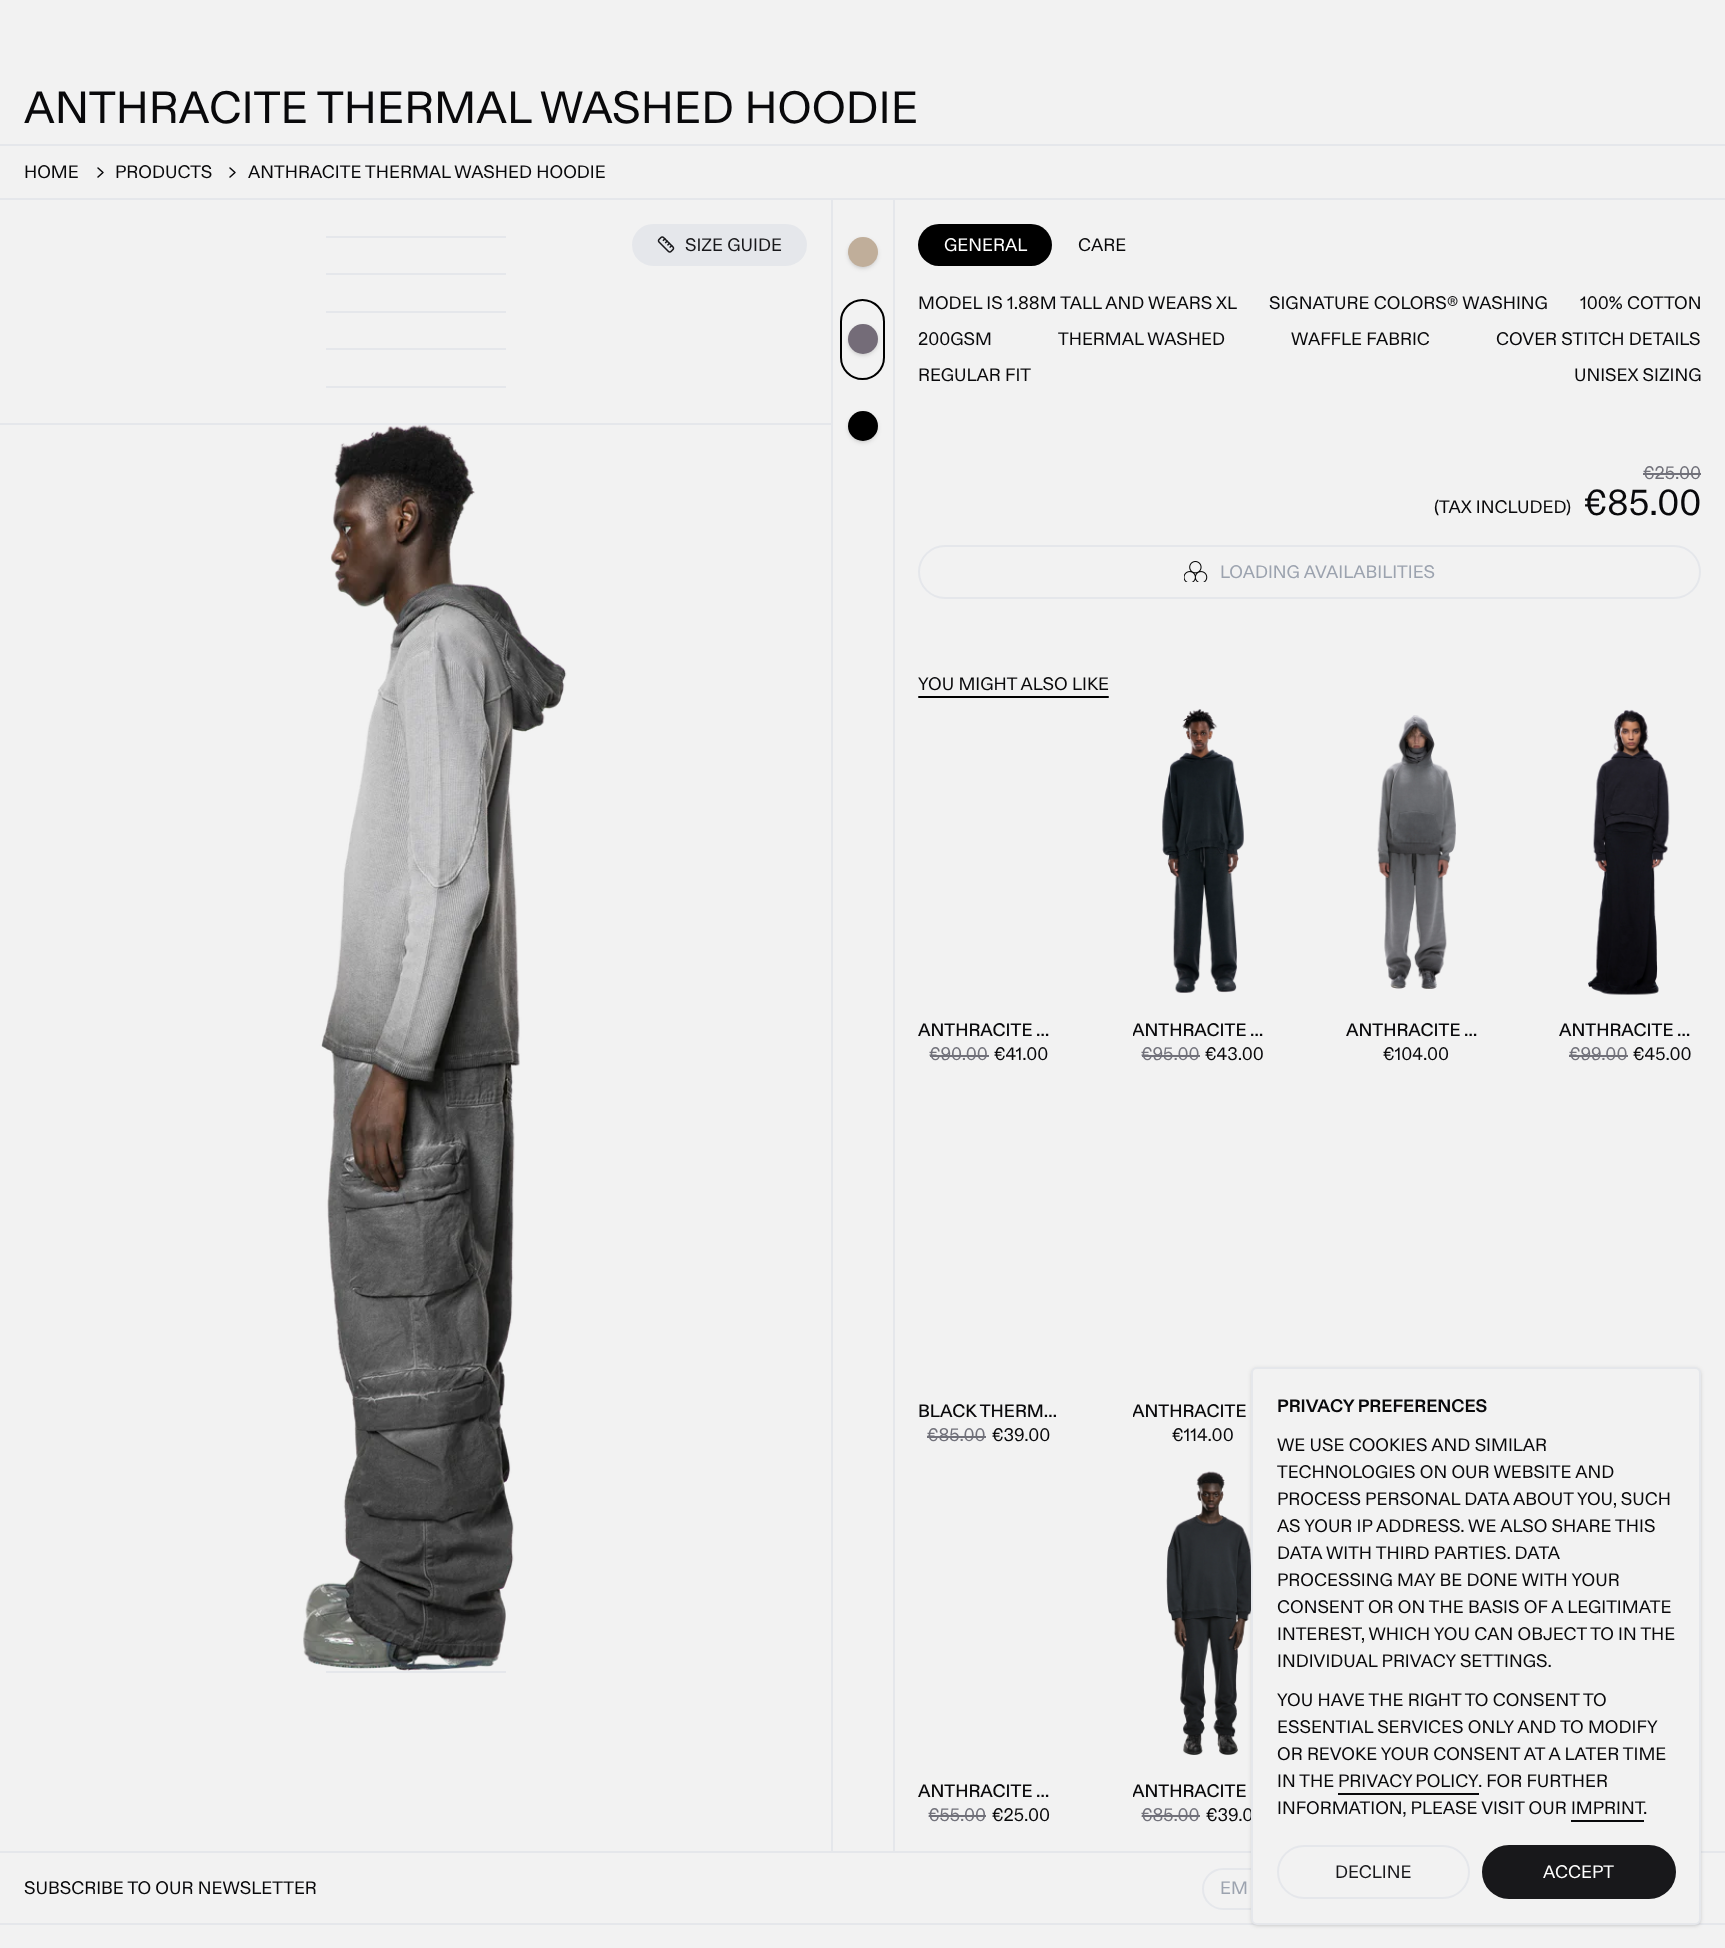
<?xml version="1.0" encoding="UTF-8"?>
<svg xmlns="http://www.w3.org/2000/svg" xmlns:xlink="http://www.w3.org/1999/xlink" width="1725" height="1948">
  <defs>
    <clipPath id="clip1"><rect x="1133" y="1019" width="141" height="24" /></clipPath>
    <clipPath id="clip2"><rect x="1133" y="1400" width="141" height="24" /></clipPath>
    <clipPath id="clip3"><rect x="1133" y="1779" width="141" height="24" /></clipPath>
  </defs>
  <rect width="100%" height="100%" fill="#f2f2f2" />
  <rect y="144" width="1725" height="2" fill="#e5e7eb" />
  <rect y="198" width="1725" height="2" fill="#e5e7eb" />
  <path d="M 98 177 l 5 -4.5 l -5 -4.5" fill="none" stroke="#09090b" stroke-width="1.5" stroke-linecap="round" stroke-linejoin="round" />
  <path d="M 230 177 l 5 -4.5 l -5 -4.5" fill="none" stroke="#09090b" stroke-width="1.5" stroke-linecap="round" stroke-linejoin="round" />
  <rect x="326" y="236" width="180" height="2" fill="#e5e7eb" />
  <rect x="326" y="273" width="180" height="2" fill="#e5e7eb" />
  <rect x="326" y="311" width="180" height="2" fill="#e5e7eb" />
  <rect x="326" y="348" width="180" height="2" fill="#e5e7eb" />
  <rect x="326" y="386" width="180" height="2" fill="#e5e7eb" />
  <rect y="423" width="831" height="2" fill="#e5e7eb" />
  <image x="303" y="424" width="264" height="1247" xlink:href="image1.png" />
  <rect x="326" y="1671" width="180" height="2" fill="#e5e7eb" />
  <rect x="633" y="225" width="173" height="40" rx="20" fill="#e5e7eb" stroke="#e5e7eb" stroke-width="2" />
  <image x="657" y="236" width="18" height="17" xlink:href="image2.png" />
  <rect x="893" y="200" width="2" height="1651" fill="#e5e7eb" />
  <rect x="831" y="200" width="2" height="1651" fill="#e5e7eb" />
  <rect x="849" y="240" width="27" height="27" rx="13.5" fill="#000000" fill-opacity="0.1" filter="blur(1.5px)" />
  <rect x="848" y="239" width="30" height="30" rx="15" fill="#000000" fill-opacity="0.1" filter="blur(2px)" />
  <circle cx="863" cy="252" r="15" fill="#c0ae9a" />
  <rect x="841" y="300" width="43" height="79" rx="21.5" fill="none" stroke="#000000" stroke-width="2" />
  <rect x="849" y="327" width="27" height="27" rx="13.5" fill="#000000" fill-opacity="0.1" filter="blur(1.5px)" />
  <rect x="848" y="326" width="30" height="30" rx="15" fill="#000000" fill-opacity="0.1" filter="blur(2px)" />
  <circle cx="863" cy="339" r="15" fill="#746c78" />
  <rect x="849" y="414" width="27" height="27" rx="13.5" fill="#000000" fill-opacity="0.1" filter="blur(1.5px)" />
  <rect x="848" y="413" width="30" height="30" rx="15" fill="#000000" fill-opacity="0.1" filter="blur(2px)" />
  <circle cx="863" cy="426" r="15" fill="#000000" />
  <rect x="918" y="224" width="134" height="42" rx="21" fill="#000000" />
  <rect x="1643" y="473" width="58" height="2" fill="#71717a" />
  <rect x="919" y="546" width="781" height="52" rx="26" fill="none" stroke="#e5e7eb" stroke-width="2" />
  <image x="1184" y="561" width="24" height="21" xlink:href="image3.png" />
  <rect x="918" y="696" width="191" height="2" rx="1" fill="#000000" />
  <rect x="930" y="1055" width="59" height="2" fill="#71717a" />
  <image x="1162" y="709" width="82" height="284" xlink:href="image4.png" />
  <rect x="1142" y="1055" width="58" height="2" fill="#71717a" />
  <image x="1377" y="715" width="79" height="274" xlink:href="image5.png" />
  <image x="1588" y="709" width="82" height="286" xlink:href="image6.png" />
  <rect x="1569" y="1055" width="59" height="2" fill="#71717a" />
  <rect x="927" y="1436" width="59" height="2" fill="#71717a" />
  <rect x="929" y="1815" width="57" height="2" fill="#71717a" />
  <image x="1166" y="1471" width="85" height="284" xlink:href="image7.png" />
  <rect x="1142" y="1815" width="58" height="2" fill="#71717a" />
  <rect y="1851" width="1725" height="2" fill="#e5e7eb" />
  <rect x="1203" y="1869" width="373" height="40" rx="20" fill="none" stroke="#e5e7eb" stroke-width="2" />
  <rect y="1923" width="1725" height="2" fill="#e5e7eb" />
  <rect x="1253" y="1370" width="447" height="555" rx="5" fill="#000000" fill-opacity="0.1" filter="blur(1.5px)" />
  <rect x="1251" y="1368" width="450" height="558" rx="6" fill="#000000" fill-opacity="0.1" filter="blur(2px)" />
  <text x="24" y="123" style="font-family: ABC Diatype; font-size: 45px; fill: #09090b">ANTHRA</text>
  <text x="209" y="123" style="font-family: ABC Diatype; font-size: 45px; fill: #09090b">CITE</text>
  <text x="317" y="123" style="font-family: ABC Diatype; font-size: 45px; fill: #09090b">THERMAL</text>
  <text x="540" y="123" style="font-family: ABC Diatype; font-size: 45px; fill: #09090b">W</text>
  <text x="582" y="123" style="font-family: ABC Diatype; font-size: 45px; fill: #09090b">A</text>
  <text x="612" y="123" style="font-family: ABC Diatype; font-size: 45px; fill: #09090b">SHED HOODIE</text>
  <text x="24" y="178" style="font-family: ABC Diatype; font-size: 18px; fill: #09090b">HOME</text>
  <text x="115" y="178" style="font-family: ABC Diatype; font-size: 18px; fill: #09090b">PRODUCTS</text>
  <text x="248" y="178" style="font-family: ABC Diatype; font-size: 18px; fill: #09090b">ANTHRACITE THERMAL WASHED HOODIE</text>
  <text x="685" y="251" style="font-family: ABC Diatype; font-size: 18px; fill: #18181b">SIZE GUIDE</text>
  <text x="944" y="251" style="font-family: ABC Diatype; font-size: 18px; fill: #ffffff">GENERAL</text>
  <text x="1078" y="251" style="font-family: ABC Diatype; font-size: 18px; fill: #09090b">CARE</text>
  <text x="918" y="309" style="font-family: ABC Diatype; font-size: 18px; fill: #09090b">MODEL IS 1.88M TALL AND WEARS XL</text>
  <text x="1269" y="309" style="font-family: ABC Diatype; font-size: 18px; fill: #09090b">SIGNATURE COLORS® WASHING</text>
  <text x="1580" y="309" style="font-family: ABC Diatype; font-size: 18px; fill: #09090b">100% COTTON</text>
  <text x="918" y="345" style="font-family: ABC Diatype; font-size: 18px; fill: #09090b">200GSM</text>
  <text x="1058" y="345" style="font-family: ABC Diatype; font-size: 18px; fill: #09090b">THERMAL WASHED</text>
  <text x="1291" y="345" style="font-family: ABC Diatype; font-size: 18px; fill: #09090b">WAFFLE FABRIC</text>
  <text x="1496" y="345" style="font-family: ABC Diatype; font-size: 18px; fill: #09090b">COVER STITCH DETAILS</text>
  <text x="918" y="381" style="font-family: ABC Diatype; font-size: 18px; fill: #09090b">REGULAR FIT</text>
  <text x="1574" y="381" style="font-family: ABC Diatype; font-size: 18px; fill: #09090b">UNISEX SIZING</text>
  <text x="1434" y="513" style="font-family: ABC Diatype; font-size: 18px; fill: #09090b">(TAX INCLUDED)</text>
  <text x="1643" y="479" style="font-family: ABC Diatype; font-size: 18px; fill: #71717a">€25.00</text>
  <text x="1584" y="515" style="font-family: ABC Diatype; font-size: 36px; fill: #09090b">€85.00</text>
  <text x="1220" y="578" style="font-family: ABC Diatype; font-size: 18px; fill: #9ca3af">LOADING AVAILABILITIES</text>
  <text x="918" y="690" style="font-family: ABC Diatype; font-size: 18px; fill: #09090b">YOU MIGHT ALSO LIKE</text>
  <text x="918" y="1036" style="font-family: ABC Diatype; font-size: 18px; font-weight: 500; fill: #09090b">ANTHRACITE …</text>
  <text x="929" y="1060" style="font-family: ABC Diatype; font-size: 18px; fill: #71717a">€90.00</text>
  <text x="994" y="1060" style="font-family: ABC Diatype; font-size: 18px; fill: #09090b">€41.00</text>
  <g clip-path="url(#clip1)">
    <text x="1132" y="1036" style="font-family: ABC Diatype; font-size: 18px; font-weight: 500; fill: #09090b">ANTHRACITE …</text>
  </g>
  <text x="1141" y="1060" style="font-family: ABC Diatype; font-size: 18px; fill: #71717a">€95.00</text>
  <text x="1205" y="1060" style="font-family: ABC Diatype; font-size: 18px; fill: #09090b">€43.00</text>
  <text x="1346" y="1036" style="font-family: ABC Diatype; font-size: 18px; font-weight: 500; fill: #09090b">ANTHRACITE …</text>
  <text x="1383" y="1060" style="font-family: ABC Diatype; font-size: 18px; fill: #09090b">€104.00</text>
  <text x="1559" y="1036" style="font-family: ABC Diatype; font-size: 18px; font-weight: 500; fill: #09090b">ANTHRACITE …</text>
  <text x="1569" y="1060" style="font-family: ABC Diatype; font-size: 18px; fill: #71717a">€99.00</text>
  <text x="1633" y="1060" style="font-family: ABC Diatype; font-size: 18px; fill: #09090b">€45.00</text>
  <text x="918" y="1417" style="font-family: ABC Diatype; font-size: 18px; font-weight: 500; fill: #09090b">BLACK THERM…</text>
  <text x="927" y="1441" style="font-family: ABC Diatype; font-size: 18px; fill: #71717a">€85.00</text>
  <text x="992" y="1441" style="font-family: ABC Diatype; font-size: 18px; fill: #09090b">€39.00</text>
  <g clip-path="url(#clip2)">
    <text x="1132" y="1417" style="font-family: ABC Diatype; font-size: 18px; font-weight: 500; fill: #09090b">ANTHRACITE</text>
  </g>
  <text x="1172" y="1441" style="font-family: ABC Diatype; font-size: 18px; fill: #09090b">€114.00</text>
  <text x="918" y="1797" style="font-family: ABC Diatype; font-size: 18px; font-weight: 500; fill: #09090b">ANTHRACITE …</text>
  <text x="928" y="1821" style="font-family: ABC Diatype; font-size: 18px; fill: #71717a">€55.00</text>
  <text x="992" y="1821" style="font-family: ABC Diatype; font-size: 18px; fill: #09090b">€25.00</text>
  <g clip-path="url(#clip3)">
    <text x="1132" y="1797" style="font-family: ABC Diatype; font-size: 18px; font-weight: 500; fill: #09090b">ANTHRACITE</text>
  </g>
  <text x="1141" y="1821" style="font-family: ABC Diatype; font-size: 18px; fill: #71717a">€85.00</text>
  <text x="1206" y="1821" style="font-family: ABC Diatype; font-size: 18px; fill: #09090b">€39.0</text>
  <rect x="1252" y="1368" width="448" height="556" rx="5" fill="#f2f2f2" stroke="#e5e7eb" stroke-width="2" />
  <text x="1277" y="1412" style="font-family: ABC Diatype; font-size: 18px; font-weight: bold; fill: #09090b">PRIVACY PREFERENCES</text>
  <text x="1277" y="1451" style="font-family: ABC Diatype; font-size: 18px; fill: #09090b">WE USE COOKIES AND SIMILAR</text>
  <text x="1277" y="1478" style="font-family: ABC Diatype; font-size: 18px; fill: #09090b">TECHNOLOGIES ON OUR WEBSITE AND</text>
  <text x="1277" y="1505" style="font-family: ABC Diatype; font-size: 18px; fill: #09090b">PROCESS PERSONAL DATA ABOUT YOU, SUCH</text>
  <text x="1277" y="1532" style="font-family: ABC Diatype; font-size: 18px; fill: #09090b">AS YOUR IP ADDRESS. WE ALSO SHARE THIS</text>
  <text x="1277" y="1559" style="font-family: ABC Diatype; font-size: 18px; fill: #09090b">DATA WITH THIRD PARTIES. DATA</text>
  <text x="1277" y="1586" style="font-family: ABC Diatype; font-size: 18px; fill: #09090b">PROCESSING MAY BE DONE WITH YOUR</text>
  <text x="1277" y="1613" style="font-family: ABC Diatype; font-size: 18px; fill: #09090b">CONSENT OR ON THE BASIS OF A LEGITIMATE</text>
  <text x="1277" y="1640" style="font-family: ABC Diatype; font-size: 18px; fill: #09090b">INTEREST, WHICH YOU CAN OBJECT TO IN THE</text>
  <text x="1277" y="1667" style="font-family: ABC Diatype; font-size: 18px; fill: #09090b">INDIVIDUAL PRIVACY SETTINGS.</text>
  <text x="1277" y="1706" style="font-family: ABC Diatype; font-size: 18px; fill: #09090b">YOU HAVE THE RIGHT TO CONSENT TO</text>
  <text x="1277" y="1733" style="font-family: ABC Diatype; font-size: 18px; fill: #09090b">ESSENTIAL SERVICES ONLY AND TO MODIFY</text>
  <text x="1277" y="1760" style="font-family: ABC Diatype; font-size: 18px; fill: #09090b">OR REVOKE YOUR CONSENT AT A LATER TIME</text>
  <text x="1277" y="1787" style="font-family: ABC Diatype; font-size: 18px; fill: #09090b">IN THE</text>
  <text x="1338" y="1787" word-spacing="-1" style="font-family: ABC Diatype; font-size: 18px; fill: #09090b">PRIVACY POLICY</text>
  <rect x="1338" y="1793" width="141" height="2" fill="#09090b" />
  <text x="1478" y="1787" style="font-family: ABC Diatype; font-size: 18px; fill: #09090b">. FOR FURTHER</text>
  <text x="1277" y="1814" style="font-family: ABC Diatype; font-size: 18px; fill: #09090b">INFORMATION, PLEASE VISIT OUR IMPRINT</text>
  <text x="1643" y="1814" style="font-family: ABC Diatype; font-size: 18px; fill: #09090b">.</text>
  <rect x="1571" y="1820" width="73" height="2" fill="#09090b" />
  <rect x="1278" y="1846" width="191" height="52" rx="26" fill="none" stroke="#e5e7eb" stroke-width="2" />
  <text x="1335" y="1878" style="font-family: ABC Diatype; font-size: 18px; fill: #18181b">DECLINE</text>
  <rect x="1483" y="1846" width="192" height="52" rx="26" fill="#18181b" stroke="#18181b" stroke-width="2" />
  <text x="1543" y="1878" style="font-family: ABC Diatype; font-size: 18px; fill: #ffffff">ACCEPT</text>
  <text x="24" y="1894" style="font-family: ABC Diatype; font-size: 18px; fill: #09090b">SUBSCRIBE TO OUR NEWSLETTER</text>
  <text x="1220" y="1894" style="font-family: ABC Diatype; font-size: 18px; fill: #9ca3af">EM</text>
</svg>
